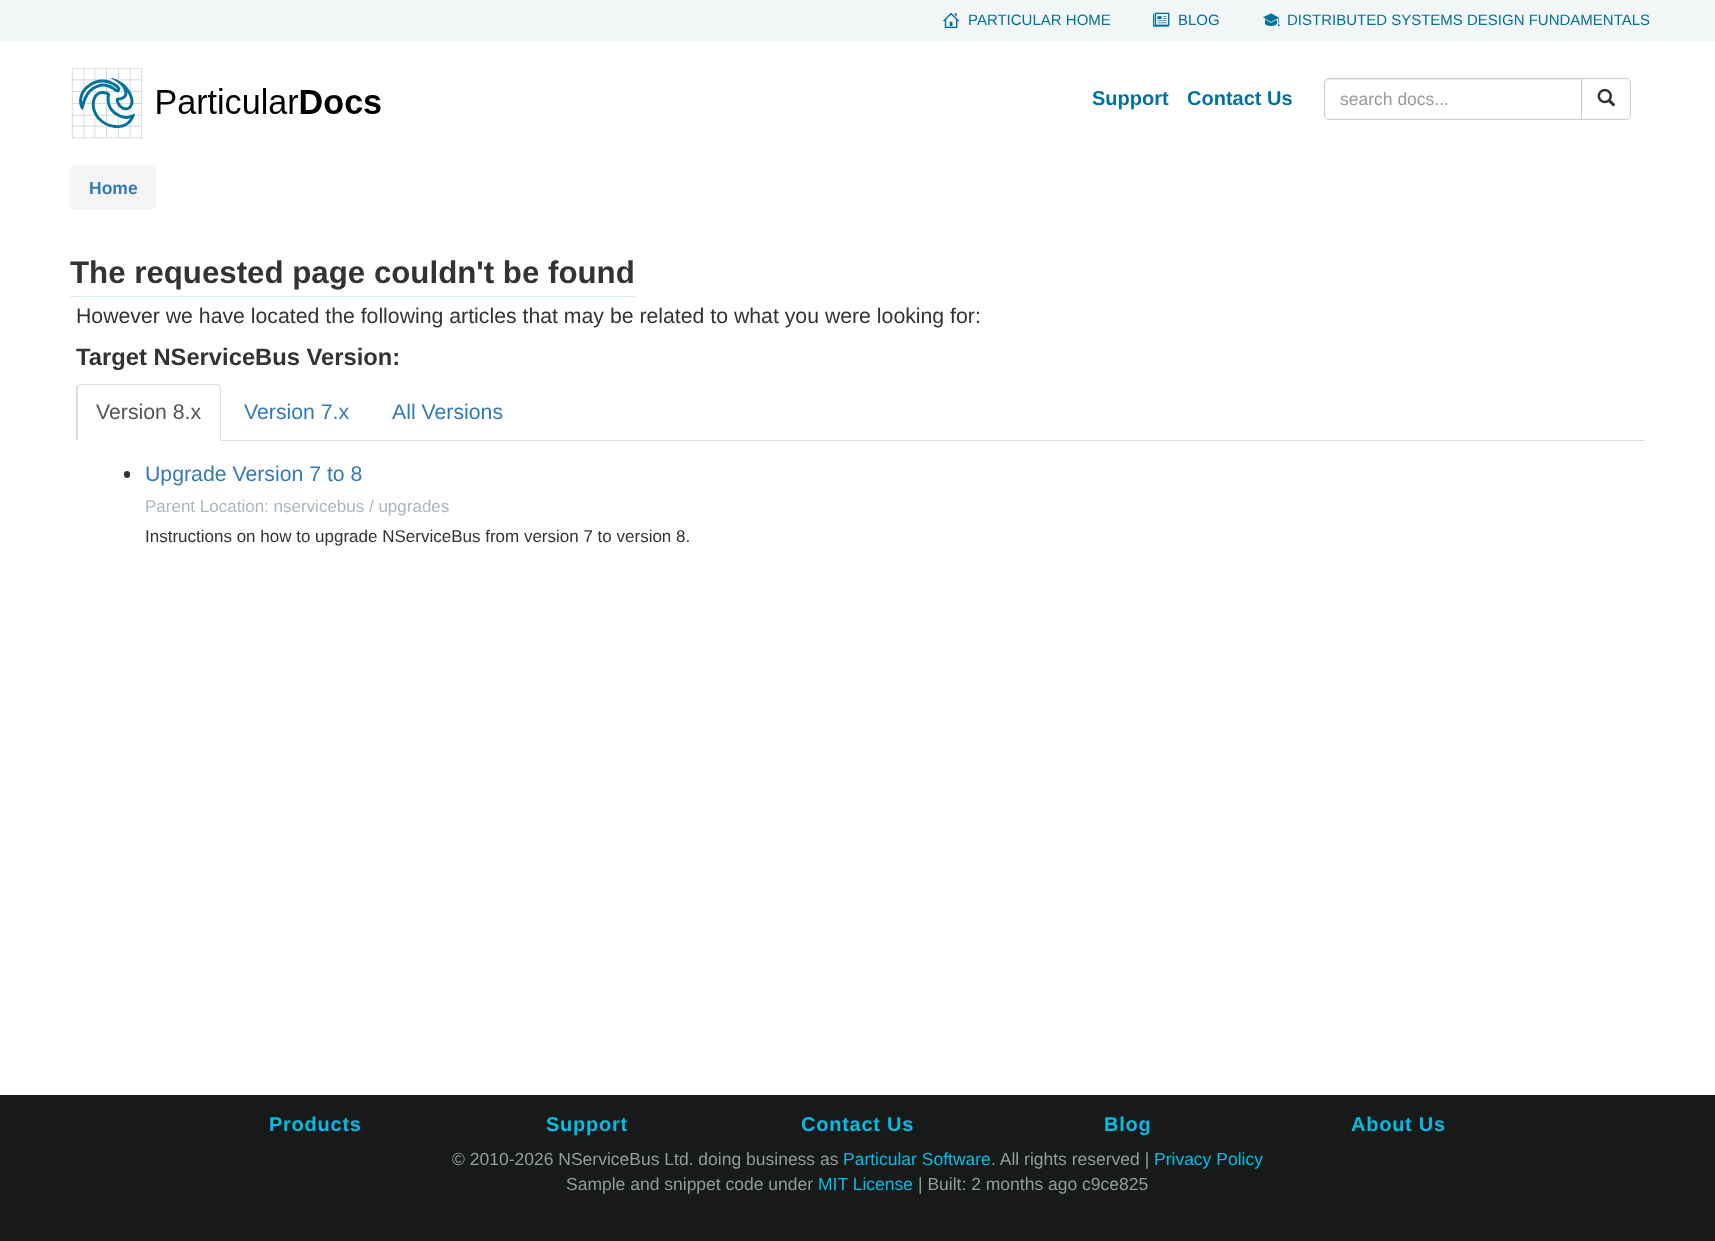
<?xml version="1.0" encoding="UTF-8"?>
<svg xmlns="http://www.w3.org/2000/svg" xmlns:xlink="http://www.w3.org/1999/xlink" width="1715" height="1241">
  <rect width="100%" height="100%" fill="#ffffff" />
  <rect width="1715" height="41" fill="#f2f6f7" />
  <image x="943" y="12" width="17" height="17" xlink:href="image1.png" />
  <image x="1153" y="12" width="17" height="15" xlink:href="image2.png" />
  <image x="1263" y="13" width="17" height="13" xlink:href="image3.png" />
  <image x="71" y="68" width="310" height="71" xlink:href="image4.png" />
  <path d="M 1329 80 h 252 v -1 h -252 c -2 0 -4 2 -4 4 v 1 c 0 -2 2 -4 4 -4 z" fill="#ececec" />
  <path d="M 1329 78.5 h 253.5 v 41 h -253.5 c -2.5 0 -4.5 -2 -4.5 -4.5 v -32 c 0 -2.5 2 -4.5 4.5 -4.5 z" fill="none" stroke="#cccccc" />
  <path d="M 1581.5 78.5 h 44.5 c 2.5 0 4.5 2 4.5 4.5 v 32 c 0 2.5 -2 4.5 -4.5 4.5 h -44.5 z" fill="#ffffff" stroke="#cccccc" />
  <image x="1597" y="88" width="19" height="19" xlink:href="image5.png" />
  <rect x="70" y="165" width="86" height="45" rx="5" fill="#f5f5f5" />
  <rect x="70" y="296" width="565" height="1" fill="#d9edf7" />
  <rect x="221" y="440" width="1424" height="1" fill="#dddddd" />
  <path d="M 81 384 l -3 1 l 1 1 l 2 -1 h 135 l 3 1 l 1 -1 c -1 -1 -2 -1 -4 -1 z" fill="#dddddd" />
  <path d="M 221 441 v -52 c 0 -1 -1 -3 -1 -4 l -1 1 l 1 3 v 51 z" fill="#dddddd" />
  <path d="M 76 387 l 2 -2 l 1 1 l -1 3 v 51 l -2 1 z" fill="#dddddd" />
  <rect x="124" y="471" width="6" height="7" rx="3" fill="#333333" />
  <rect y="1095" width="1715" height="146" fill="#181919" />
  <text x="968" y="25" style="font-family: Liberation Sans; font-size: 15px; fill: #00729c">PARTICULAR HOME</text>
  <text x="1178" y="25" style="font-family: Liberation Sans; font-size: 15px; fill: #00729c">BLOG</text>
  <text x="1287" y="25" style="font-family: Liberation Sans; font-size: 15px; fill: #00729c">DISTRIBUTED SYSTEMS DESIGN FUNDAMENTALS</text>
  <text x="1092" y="105" style="font-family: Liberation Sans; font-size: 20px; font-weight: bold; fill: #00729c">Support</text>
  <text x="1187" y="105" style="font-family: Liberation Sans; font-size: 20px; font-weight: bold; fill: #00729c">Contact Us</text>
  <text x="1340" y="105" style="font-family: Liberation Sans; font-size: 17.5px; fill: #999999">search docs...</text>
  <text x="89" y="194" style="font-family: Liberation Sans; font-size: 17.5px; font-weight: bold; fill: #337ab7">Home</text>
  <text x="70" y="283" style="font-family: Liberation Sans; font-size: 31.25px; font-weight: bold; fill: #333333">The requested page couldn't be found</text>
  <text x="76" y="323" style="font-family: Liberation Sans; font-size: 21.25px; fill: #333333">However we have located the following articles that may be related to what you were looking for:</text>
  <text x="76" y="365" style="font-family: Liberation Sans; font-size: 23.75px; font-weight: bold; fill: #333333">Target NServiceBus Version:</text>
  <text x="96" y="419" style="font-family: Liberation Sans; font-size: 21.25px; fill: #555555">Version 8.x</text>
  <text x="244" y="419" style="font-family: Liberation Sans; font-size: 21.25px; fill: #337ab7">Version 7.x</text>
  <text x="392" y="419" style="font-family: Liberation Sans; font-size: 21.25px; fill: #337ab7">All Versions</text>
  <text x="145" y="481" style="font-family: Liberation Sans; font-size: 21.25px; fill: #337ab7">Upgrade Version 7 to 8</text>
  <text x="145" y="512" style="font-family: Liberation Sans; font-size: 17px; fill: #adb7be">Parent Location: nservicebus / upgrades</text>
  <text x="145" y="542" style="font-family: Liberation Sans; font-size: 17px; fill: #333333">Instructions on how to upgrade NServiceBus from version 7 to version 8.</text>
  <text x="269" y="1131" style="font-family: Liberation Sans; font-size: 20px; font-weight: bold; letter-spacing: 0.75px; fill: #00bfe6">Products</text>
  <text x="546" y="1131" style="font-family: Liberation Sans; font-size: 20px; font-weight: bold; letter-spacing: 0.75px; fill: #00bfe6">Support</text>
  <text x="801" y="1131" style="font-family: Liberation Sans; font-size: 20px; font-weight: bold; letter-spacing: 0.75px; fill: #00bfe6">Contact Us</text>
  <text x="1104" y="1131" style="font-family: Liberation Sans; font-size: 20px; font-weight: bold; letter-spacing: 0.75px; fill: #00bfe6">Blog</text>
  <text x="1351" y="1131" style="font-family: Liberation Sans; font-size: 20px; font-weight: bold; letter-spacing: 0.75px; fill: #00bfe6">About Us</text>
  <text x="452" y="1165" style="font-family: Liberation Sans; font-size: 17.5px; fill: #919e9e">© 2010-2026 NServiceBus Ltd. doing business as</text>
  <text x="843" y="1165" style="font-family: Liberation Sans; font-size: 17.5px; fill: #00bfe6">Particular Software</text>
  <text x="991" y="1165" style="font-family: Liberation Sans; font-size: 17.5px; fill: #919e9e">. All rights reserved |</text>
  <text x="1154" y="1165" style="font-family: Liberation Sans; font-size: 17.5px; fill: #00bfe6">Privacy Policy</text>
  <text x="566" y="1190" style="font-family: Liberation Sans; font-size: 17.5px; fill: #919e9e">Sample and snippet code under</text>
  <text x="818" y="1190" style="font-family: Liberation Sans; font-size: 17.5px; fill: #00bfe6">MIT License</text>
  <text x="918" y="1190" style="font-family: Liberation Sans; font-size: 17.5px; fill: #919e9e">| Built: 2 months ago c9ce825</text>
</svg>
